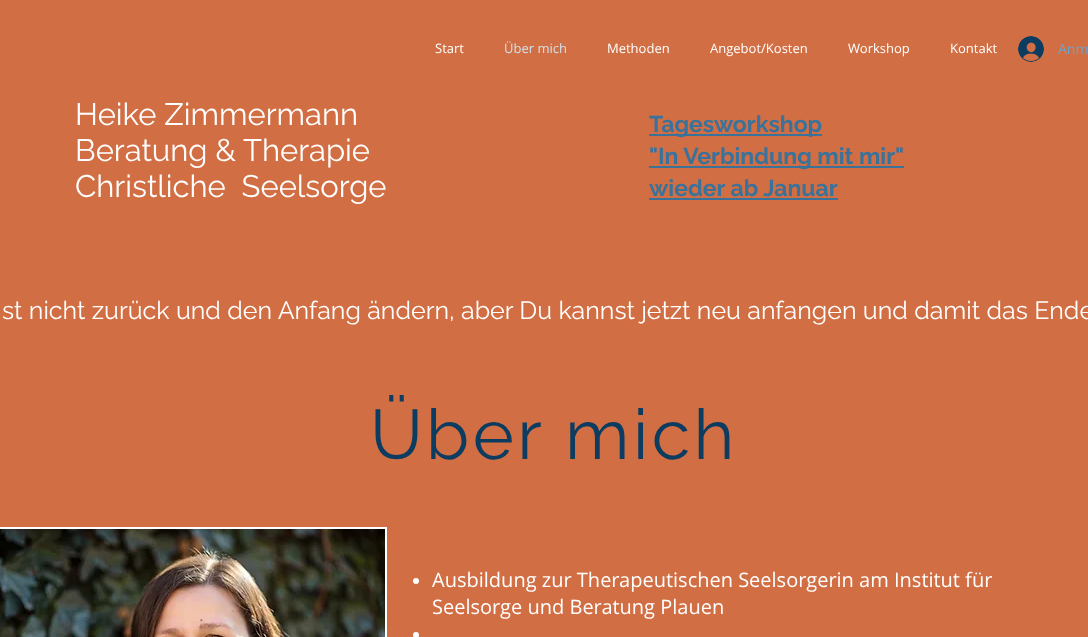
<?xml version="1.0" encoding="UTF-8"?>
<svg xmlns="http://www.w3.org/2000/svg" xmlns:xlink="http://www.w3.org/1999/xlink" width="1088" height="637">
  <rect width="100%" height="100%" fill="#d16e43" />
  <image x="1018" y="36" width="26" height="26" xlink:href="image1.png" />
  <rect x="649" y="134" width="173" height="2" fill="#39729b" />
  <rect x="649" y="166" width="255" height="2" fill="#39729b" />
  <rect x="649" y="198" width="189" height="2" fill="#39729b" />
  <rect y="527" width="387" height="110" fill="#ffffff" />
  <image x="0" y="529" width="385" height="108" xlink:href="image2.png" />
  <circle cx="416" cy="581" r="3" fill="#ffffff" />
  <circle cx="416" cy="635" r="3" fill="#ffffff" />
  <text x="435" y="53" style="font-family: Open Sans; font-size: 13px; fill: #ffffff">Start</text>
  <text x="504" y="53" style="font-family: Open Sans; font-size: 13px; fill: #d1e0eb">Über mich</text>
  <text x="607" y="53" style="font-family: Open Sans; font-size: 13px; fill: #ffffff">Methoden</text>
  <text x="710" y="53" style="font-family: Open Sans; font-size: 13px; fill: #ffffff">Angebot/Kosten</text>
  <text x="848" y="53" style="font-family: Open Sans; font-size: 13px; fill: #ffffff">Workshop</text>
  <text x="950" y="53" style="font-family: Open Sans; font-size: 13px; fill: #ffffff">Kontakt</text>
  <text x="1058" y="54" style="font-family: Open Sans; font-size: 14px; fill: #6ea4ca">Anm</text>
  <text x="75" y="125" style="font-family: Raleway; font-size: 31px; fill: #ffffff">Heike Zimmermann</text>
  <text x="75" y="161" style="font-family: Raleway; font-size: 31px; fill: #ffffff">Beratung &amp; Therapie</text>
  <text x="75" y="197" style="font-family: Raleway; font-size: 31px; fill: #ffffff" xml:space="preserve">Christliche  Seelsorge</text>
  <text x="649" y="132" style="font-family: Raleway; font-size: 23px; font-weight: bold; fill: #39729b">Tagesworkshop</text>
  <text x="649" y="164" style="font-family: Raleway; font-size: 23px; font-weight: bold; fill: #39729b">"In Verbindung mit mir"</text>
  <text x="649" y="196" style="font-family: Raleway; font-size: 23px; font-weight: bold; fill: #39729b">wieder ab Januar</text>
  <text x="2" y="319" style="font-family: Raleway; font-size: 25px; fill: #ffffff">st nicht zurück und den Anfang ändern, aber Du kannst jetzt neu anfangen und damit das Ende</text>
  <text x="370" y="459" style="font-family: Raleway; font-size: 70px; letter-spacing: 3.5px; fill: #0c3c60">Über mich</text>
  <text x="432" y="587" style="font-family: Open Sans; font-size: 20px; fill: #ffffff">Ausbildung zur Therapeutischen Seelsorgerin am Institut für</text>
  <text x="432" y="614" style="font-family: Open Sans; font-size: 20px; fill: #ffffff">Seelsorge und Beratung Plauen</text>
</svg>
